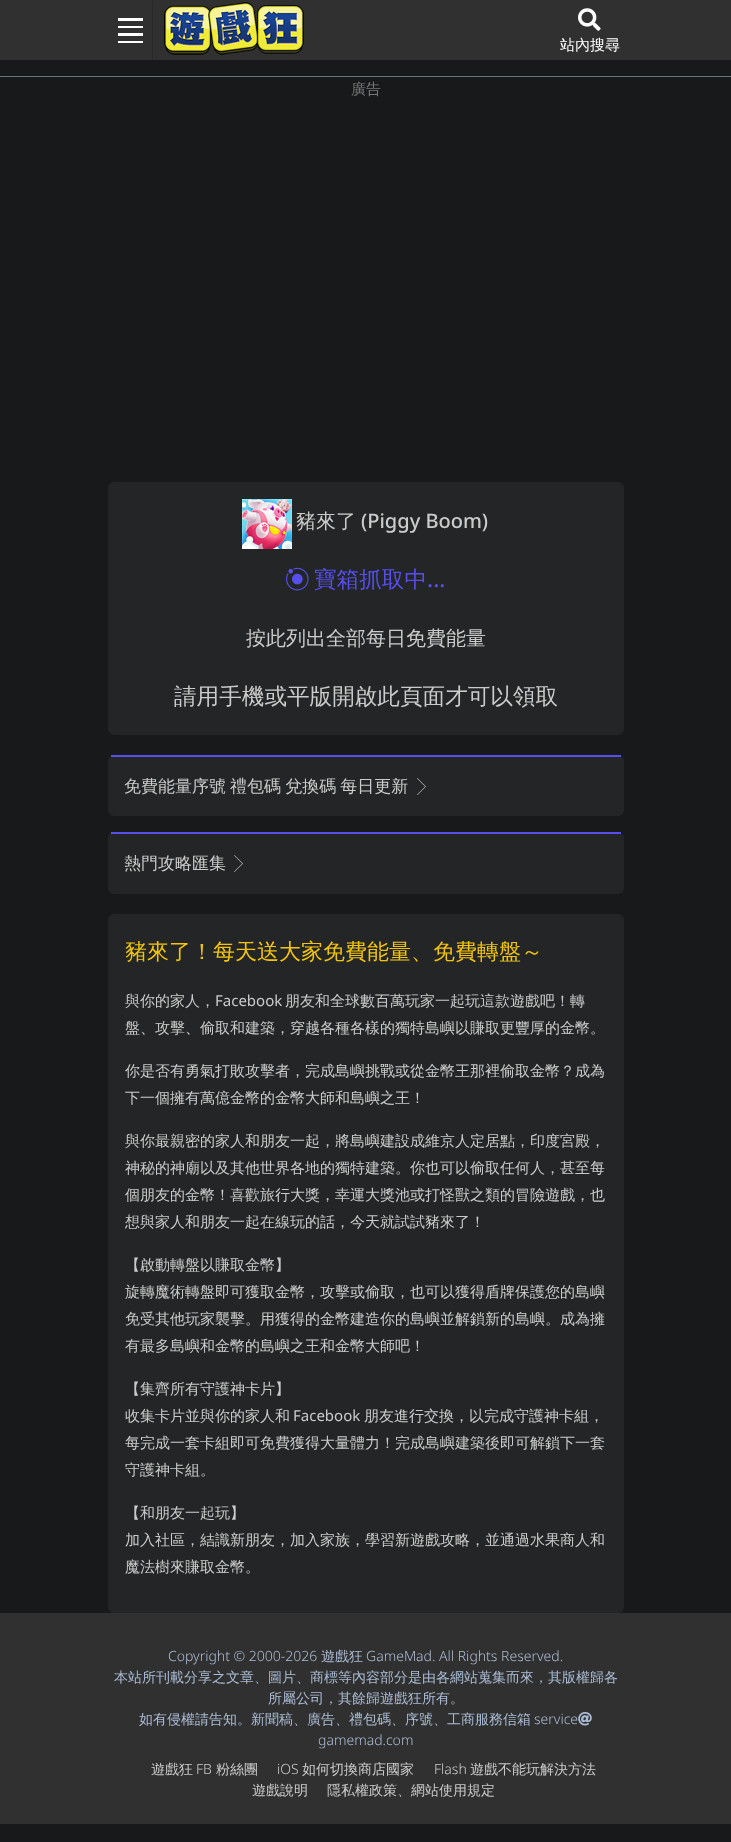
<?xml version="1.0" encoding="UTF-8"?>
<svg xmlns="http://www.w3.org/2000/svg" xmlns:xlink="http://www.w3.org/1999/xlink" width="731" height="1842">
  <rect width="100%" height="100%" fill="#18191a" />
  <rect width="731" height="60" fill="#303030" />
  <path d="M 153 0 v 60 l -1 -1 v -58 z" fill="#292929" />
  <rect x="118" y="18" width="25" height="3" fill="#ffffff" />
  <rect x="118" y="26" width="25" height="2" fill="#ffffff" />
  <rect x="118" y="33" width="25" height="3" fill="#ffffff" />
  <rect x="118" y="41" width="25" height="2" fill="#ffffff" />
  <image x="164" y="2" width="140" height="53" xlink:href="image1.png" />
  <image x="578" y="8" width="23" height="23" xlink:href="image2.png" />
  <rect y="76" width="731" height="1" fill="#6c757d" />
  <rect x="108.5" y="482.5" width="515" height="252" rx="5.5" fill="#242526" stroke="#242526" />
  <image x="242" y="499" width="50" height="50" xlink:href="image3.png" />
  <image x="286" y="567" width="23" height="24" xlink:href="image4.png" />
  <rect x="108" y="755" width="516" height="61" rx="6" fill="#242526" />
  <rect x="111" y="755" width="510" height="2" fill="#574fec" />
  <image x="417" y="778" width="9" height="17" xlink:href="image5.png" />
  <rect x="108" y="832" width="516" height="62" rx="6" fill="#242526" />
  <rect x="111" y="832" width="510" height="2" fill="#574fec" />
  <image x="234" y="855" width="9" height="17" xlink:href="image5.png" />
  <rect x="108.5" y="914.5" width="515" height="698" rx="5.5" fill="#242526" stroke="#242526" />
  <rect y="1613" width="731" height="211" fill="#303030" />
  <image x="578" y="1712" width="14" height="14" xlink:href="image6.png" />
  <text x="560" y="50" style="font-family: WenQuanYi Zen Hei; font-size: 15px; font-weight: 500; fill: #ffffff">站內搜尋</text>
  <text x="351" y="94" style="font-family: WenQuanYi Zen Hei; font-size: 15px; font-weight: 500; fill: #797979">廣告</text>
  <text x="296" y="528" style="font-family: WenQuanYi Zen Hei; font-size: 20px; font-weight: 500; fill: #cbcbcb">豬來了</text>
  <text x="361" y="528" style="font-family: Noto Sans; font-size: 20px; font-weight: 500; fill: #cbcbcb">(Piggy Boom)</text>
  <text x="314" y="587" style="font-family: WenQuanYi Zen Hei; font-size: 22.6px; font-weight: 500; fill: #574fec">寶箱抓取中</text>
  <text x="427" y="587" style="font-family: Noto Sans; font-size: 22.6px; font-weight: 500; fill: #574fec">...</text>
  <text x="246" y="645" style="font-family: WenQuanYi Zen Hei; font-size: 20px; font-weight: 500; fill: #cbcbcb">按此列出全部每日免費能量</text>
  <text x="174" y="704" style="font-family: WenQuanYi Zen Hei; font-size: 22.6px; font-weight: 500; fill: #cbcbcb">請用手機或平版開啟此頁面才可以領取</text>
  <text x="124" y="792" word-spacing="-1" style="font-family: WenQuanYi Zen Hei; font-size: 17px; font-weight: 500; fill: #cbcbcb">免費能量序號 禮包碼 兌換碼 每日更新</text>
  <text x="124" y="869" style="font-family: WenQuanYi Zen Hei; font-size: 17px; font-weight: 500; fill: #cbcbcb">熱門攻略匯集</text>
  <text x="125" y="959" style="font-family: WenQuanYi Zen Hei; font-size: 22px; font-weight: 500; fill: #f1c40f">豬來了！每天送大家免費能量、免費轉盤～</text>
  <text x="125" y="1006" style="font-family: WenQuanYi Zen Hei; font-size: 15px; font-weight: 500; fill: #cbcbcb">與你的家人，</text>
  <text x="215" y="1006" style="font-family: Noto Sans; font-size: 15px; fill: #cbcbcb">Facebook</text>
  <text x="285" y="1006" style="font-family: WenQuanYi Zen Hei; font-size: 15px; font-weight: 500; fill: #cbcbcb">朋友和全球數百萬玩家一起玩這款遊戲吧！轉</text>
  <text x="125" y="1033" style="font-family: WenQuanYi Zen Hei; font-size: 15px; font-weight: 500; fill: #cbcbcb">盤、攻擊、偷取和建築，穿越各種各樣的獨特島嶼以賺取更豐厚的金幣。</text>
  <text x="125" y="1076" style="font-family: WenQuanYi Zen Hei; font-size: 15px; font-weight: 500; fill: #cbcbcb">你是否有勇氣打敗攻擊者，完成島嶼挑戰或從金幣王那裡偷取金幣？成為</text>
  <text x="125" y="1103" style="font-family: WenQuanYi Zen Hei; font-size: 15px; font-weight: 500; fill: #cbcbcb">下一個擁有萬億金幣的金幣大師和島嶼之王！</text>
  <text x="125" y="1146" style="font-family: WenQuanYi Zen Hei; font-size: 15px; font-weight: 500; fill: #cbcbcb">與你最親密的家人和朋友一起，將島嶼建設成維京人定居點，印度宮殿，</text>
  <text x="125" y="1173" style="font-family: WenQuanYi Zen Hei; font-size: 15px; font-weight: 500; fill: #cbcbcb">神秘的神廟以及其他世界各地的獨特建築。你也可以偷取任何人，甚至每</text>
  <text x="125" y="1200" style="font-family: WenQuanYi Zen Hei; font-size: 15px; font-weight: 500; fill: #cbcbcb">個朋友的金幣！喜歡旅行大獎，幸運大獎池或打怪獸之類的冒險遊戲，也</text>
  <text x="125" y="1227" style="font-family: WenQuanYi Zen Hei; font-size: 15px; font-weight: 500; fill: #cbcbcb">想與家人和朋友一起在線玩的話，今天就試試豬來了！</text>
  <text x="125" y="1270" style="font-family: WenQuanYi Zen Hei; font-size: 15px; font-weight: 500; fill: #cbcbcb">【啟動轉盤以賺取金幣】</text>
  <text x="125" y="1297" style="font-family: WenQuanYi Zen Hei; font-size: 15px; font-weight: 500; fill: #cbcbcb">旋轉魔術轉盤即可獲取金幣，攻擊或偷取，也可以獲得盾牌保護您的島嶼</text>
  <text x="125" y="1324" style="font-family: WenQuanYi Zen Hei; font-size: 15px; font-weight: 500; fill: #cbcbcb">免受其他玩家襲擊。用獲得的金幣建造你的島嶼並解鎖新的島嶼。成為擁</text>
  <text x="125" y="1351" style="font-family: WenQuanYi Zen Hei; font-size: 15px; font-weight: 500; fill: #cbcbcb">有最多島嶼和金幣的島嶼之王和金幣大師吧！</text>
  <text x="125" y="1394" style="font-family: WenQuanYi Zen Hei; font-size: 15px; font-weight: 500; fill: #cbcbcb">【集齊所有守護神卡片】</text>
  <text x="125" y="1421" style="font-family: WenQuanYi Zen Hei; font-size: 15px; font-weight: 500; fill: #cbcbcb">收集卡片並與你的家人和</text>
  <text x="293" y="1421" style="font-family: Noto Sans; font-size: 15px; fill: #cbcbcb">Facebook</text>
  <text x="364" y="1421" style="font-family: WenQuanYi Zen Hei; font-size: 15px; font-weight: 500; fill: #cbcbcb">朋友進行交換，以完成守護神卡組，</text>
  <text x="125" y="1448" style="font-family: WenQuanYi Zen Hei; font-size: 15px; font-weight: 500; fill: #cbcbcb">每完成一套卡組即可免費獲得大量體力！完成島嶼建築後即可解鎖下一套</text>
  <text x="125" y="1475" style="font-family: WenQuanYi Zen Hei; font-size: 15px; font-weight: 500; fill: #cbcbcb">守護神卡組。</text>
  <text x="125" y="1518" style="font-family: WenQuanYi Zen Hei; font-size: 15px; font-weight: 500; fill: #cbcbcb">【和朋友一起玩】</text>
  <text x="125" y="1545" style="font-family: WenQuanYi Zen Hei; font-size: 15px; font-weight: 500; fill: #cbcbcb">加入社區，結識新朋友，加入家族，學習新遊戲攻略，並通過水果商人和</text>
  <text x="125" y="1572" style="font-family: WenQuanYi Zen Hei; font-size: 15px; font-weight: 500; fill: #cbcbcb">魔法樹來賺取金幣。</text>
  <text x="168" y="1661" style="font-family: Noto Sans; font-size: 14px; font-weight: 300; fill: #abbcd5">Copyright © 2000-2026</text>
  <text x="321" y="1661" style="font-family: WenQuanYi Zen Hei; font-size: 14px; font-weight: 500; fill: #abbcd5">遊戲狂</text>
  <text x="366" y="1661" style="font-family: Noto Sans; font-size: 14px; font-weight: 300; fill: #abbcd5">GameMad. All Rights Reserved.</text>
  <text x="114" y="1682" style="font-family: WenQuanYi Zen Hei; font-size: 14px; font-weight: 500; fill: #abbcd5">本站所刊載分享之文章、圖片、商標等內容部分是由各網站蒐集而來，其版權歸各</text>
  <text x="268" y="1703" style="font-family: WenQuanYi Zen Hei; font-size: 14px; font-weight: 500; fill: #abbcd5">所屬公司，其餘歸遊戲狂所有。</text>
  <text x="139" y="1724" style="font-family: WenQuanYi Zen Hei; font-size: 14px; font-weight: 500; fill: #abbcd5">如有侵權請告知。新聞稿、廣告、禮包碼、序號、工商服務信箱</text>
  <text x="534" y="1724" style="font-family: Noto Sans; font-size: 14px; font-weight: 300; fill: #abbcd5">service</text>
  <text x="318" y="1745" style="font-family: Noto Sans; font-size: 14px; font-weight: 300; fill: #abbcd5">gamemad.com</text>
  <text x="151" y="1774" style="font-family: WenQuanYi Zen Hei; font-size: 14px; font-weight: 500; fill: #cbcbcb">遊戲狂</text>
  <text x="196" y="1774" style="font-family: Noto Sans; font-size: 14px; font-weight: 300; fill: #cbcbcb">FB</text>
  <text x="216" y="1774" style="font-family: WenQuanYi Zen Hei; font-size: 14px; font-weight: 500; fill: #cbcbcb">粉絲團</text>
  <text x="277" y="1774" style="font-family: Noto Sans; font-size: 14px; font-weight: 300; fill: #cbcbcb">iOS</text>
  <text x="302" y="1774" style="font-family: WenQuanYi Zen Hei; font-size: 14px; font-weight: 500; fill: #cbcbcb">如何切換商店國家</text>
  <text x="434" y="1774" style="font-family: Noto Sans; font-size: 14px; font-weight: 300; fill: #cbcbcb">Flash</text>
  <text x="470" y="1774" style="font-family: WenQuanYi Zen Hei; font-size: 14px; font-weight: 500; fill: #cbcbcb">遊戲不能玩解決方法</text>
  <text x="252" y="1795" style="font-family: WenQuanYi Zen Hei; font-size: 14px; font-weight: 500; fill: #cbcbcb">遊戲說明</text>
  <text x="327" y="1795" style="font-family: WenQuanYi Zen Hei; font-size: 14px; font-weight: 500; fill: #cbcbcb">隱私權政策、網站使用規定</text>
</svg>
